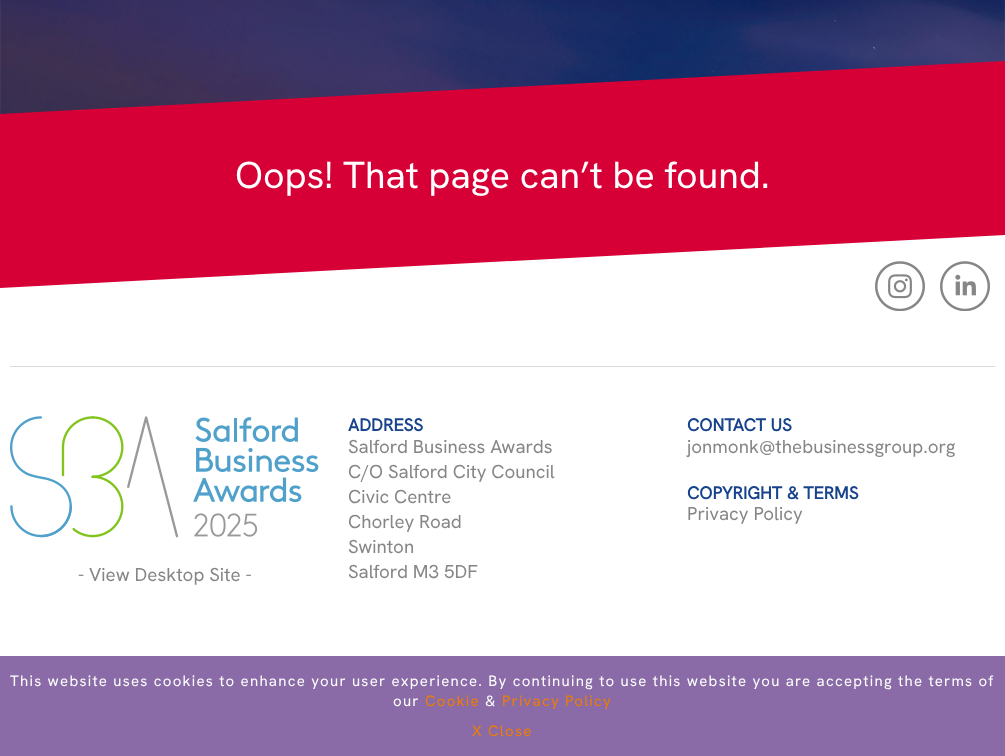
<?xml version="1.0" encoding="UTF-8"?>
<svg xmlns="http://www.w3.org/2000/svg" xmlns:xlink="http://www.w3.org/1999/xlink" width="1005" height="756">
  <rect width="100%" height="100%" fill="#ffffff" />
  <image x="0" y="0" width="1005" height="114" xlink:href="image1.png" />
  <path d="M 0 114 l 1005 -53 v 174 l -1005 53 z" fill="#d70036" />
  <image x="875" y="261" width="50" height="50" xlink:href="image2.png" />
  <image x="940" y="261" width="50" height="50" xlink:href="image3.png" />
  <rect x="10" y="366" width="985" height="1" fill="#dadada" />
  <image x="10" y="416" width="309" height="122" xlink:href="image4.png" />
  <rect y="656" width="1005" height="100" fill="#8a6ba7" />
  <text x="235" y="188" style="font-family: Hanken Grotesk; font-size: 37.5px; fill: #ffffff">Oops! That page can’t be found.</text>
  <text x="348" y="431" style="font-family: Hanken Grotesk; font-size: 17.5px; font-weight: bold; fill: #17428c">ADDRESS</text>
  <text x="348" y="453" style="font-family: Hanken Grotesk; font-size: 18.75px; fill: #868686">Salford Business Awards</text>
  <text x="348" y="478" style="font-family: Hanken Grotesk; font-size: 18.75px; fill: #868686">C/O Salford City Council</text>
  <text x="348" y="503" style="font-family: Hanken Grotesk; font-size: 18.75px; fill: #868686">Civic Centre</text>
  <text x="348" y="528" style="font-family: Hanken Grotesk; font-size: 18.75px; fill: #868686">Chorley Road</text>
  <text x="348" y="553" style="font-family: Hanken Grotesk; font-size: 18.75px; fill: #868686">Swinton</text>
  <text x="348" y="578" style="font-family: Hanken Grotesk; font-size: 18.75px; fill: #868686">Salford M3 5DF</text>
  <text x="687" y="431" style="font-family: Hanken Grotesk; font-size: 17.5px; font-weight: bold; fill: #17428c">CONTACT US</text>
  <text x="687" y="453" style="font-family: Hanken Grotesk; font-size: 18.75px; fill: #868686">jonmonk@thebusinessgroup.org</text>
  <text x="687" y="499" style="font-family: Hanken Grotesk; font-size: 17.5px; font-weight: bold; fill: #17428c">COPYRIGHT &amp; TERMS</text>
  <text x="687" y="520" style="font-family: Hanken Grotesk; font-size: 18.75px; fill: #868686">Privacy Policy</text>
  <text x="78" y="581" style="font-family: Hanken Grotesk; font-size: 18.75px; fill: #868686">- View Desktop Site -</text>
  <text x="10" y="686" style="font-family: Hanken Grotesk; font-size: 15px; letter-spacing: 1.25px; fill: #ffffff">This website uses cookies to enhance your user experience. By continuing to use this website you are accepting the terms of</text>
  <text x="393" y="706" style="font-family: Hanken Grotesk; font-size: 15px; letter-spacing: 1.25px; fill: #ffffff">our</text>
  <text x="425" y="706" style="font-family: Hanken Grotesk; font-size: 15px; letter-spacing: 1.25px; fill: #ef7d00">Cookie</text>
  <text x="485" y="706" style="font-family: Hanken Grotesk; font-size: 15px; letter-spacing: 1.25px; fill: #ffffff">&amp;</text>
  <text x="502" y="706" style="font-family: Hanken Grotesk; font-size: 15px; letter-spacing: 1.25px; fill: #ef7d00">Privacy Policy</text>
  <text x="472" y="736" style="font-family: Hanken Grotesk; font-size: 15px; letter-spacing: 1.25px; fill: #ef7d00">X Close</text>
</svg>
